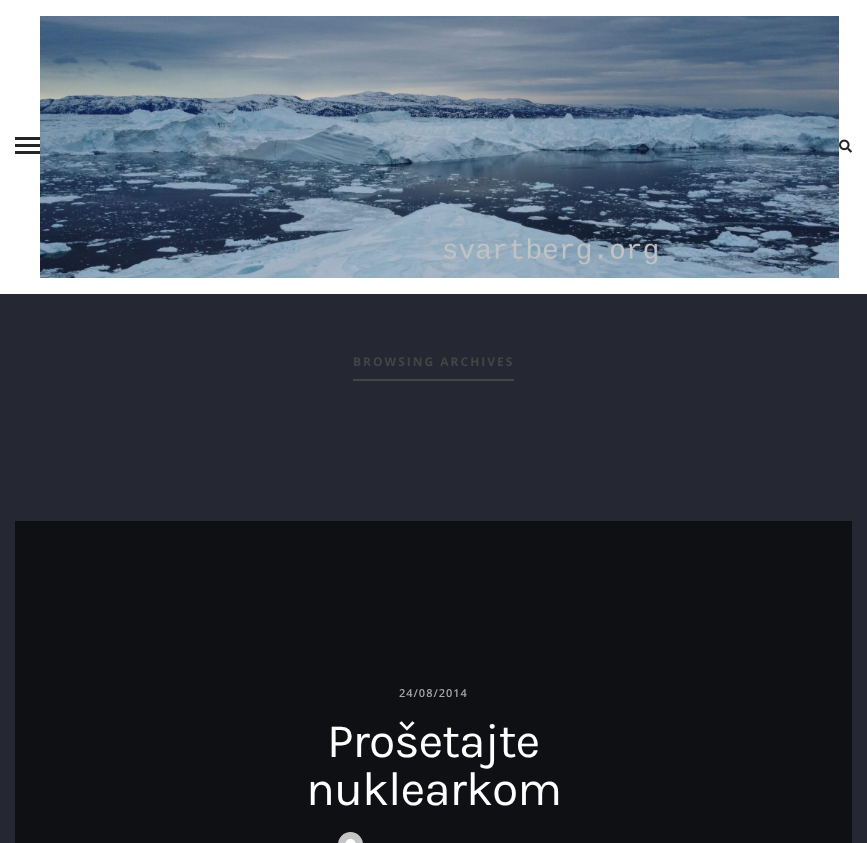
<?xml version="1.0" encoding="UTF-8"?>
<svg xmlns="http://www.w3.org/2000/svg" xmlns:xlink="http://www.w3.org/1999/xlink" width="867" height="843">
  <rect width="100%" height="100%" fill="#252733" />
  <rect width="867" height="294" fill="#ffffff" />
  <rect x="15" y="137" width="25" height="3" fill="#252525" />
  <rect x="15" y="144" width="25" height="3" fill="#252525" />
  <rect x="15" y="151" width="25" height="3" fill="#252525" />
  <image x="40" y="16" width="799" height="262" xlink:href="image1.png" />
  <image x="839" y="139" width="13" height="14" xlink:href="image2.png" />
  <rect x="353" y="379" width="161" height="2" fill="#454545" />
  <rect x="15" y="521" width="837" height="322" fill="#0f1014" />
  <image x="338" y="832" width="25" height="11" xlink:href="image3.png" />
  <text x="353" y="366" style="font-family: Open Sans; font-size: 12px; font-weight: bold; letter-spacing: 2px; fill: #454545">BROWSING ARCHIVES</text>
  <text x="399" y="697" style="font-family: Open Sans; font-size: 11px; font-weight: 600; letter-spacing: 1px; fill: #a5a5a5">24/08/2014</text>
  <text x="327" y="757" style="font-family: Karla; font-size: 48px; letter-spacing: -1px; fill: #ffffff">Prošetajte</text>
  <text x="306" y="805" style="font-family: Karla; font-size: 48px; letter-spacing: -1px; fill: #ffffff">nuklearkom</text>
</svg>
